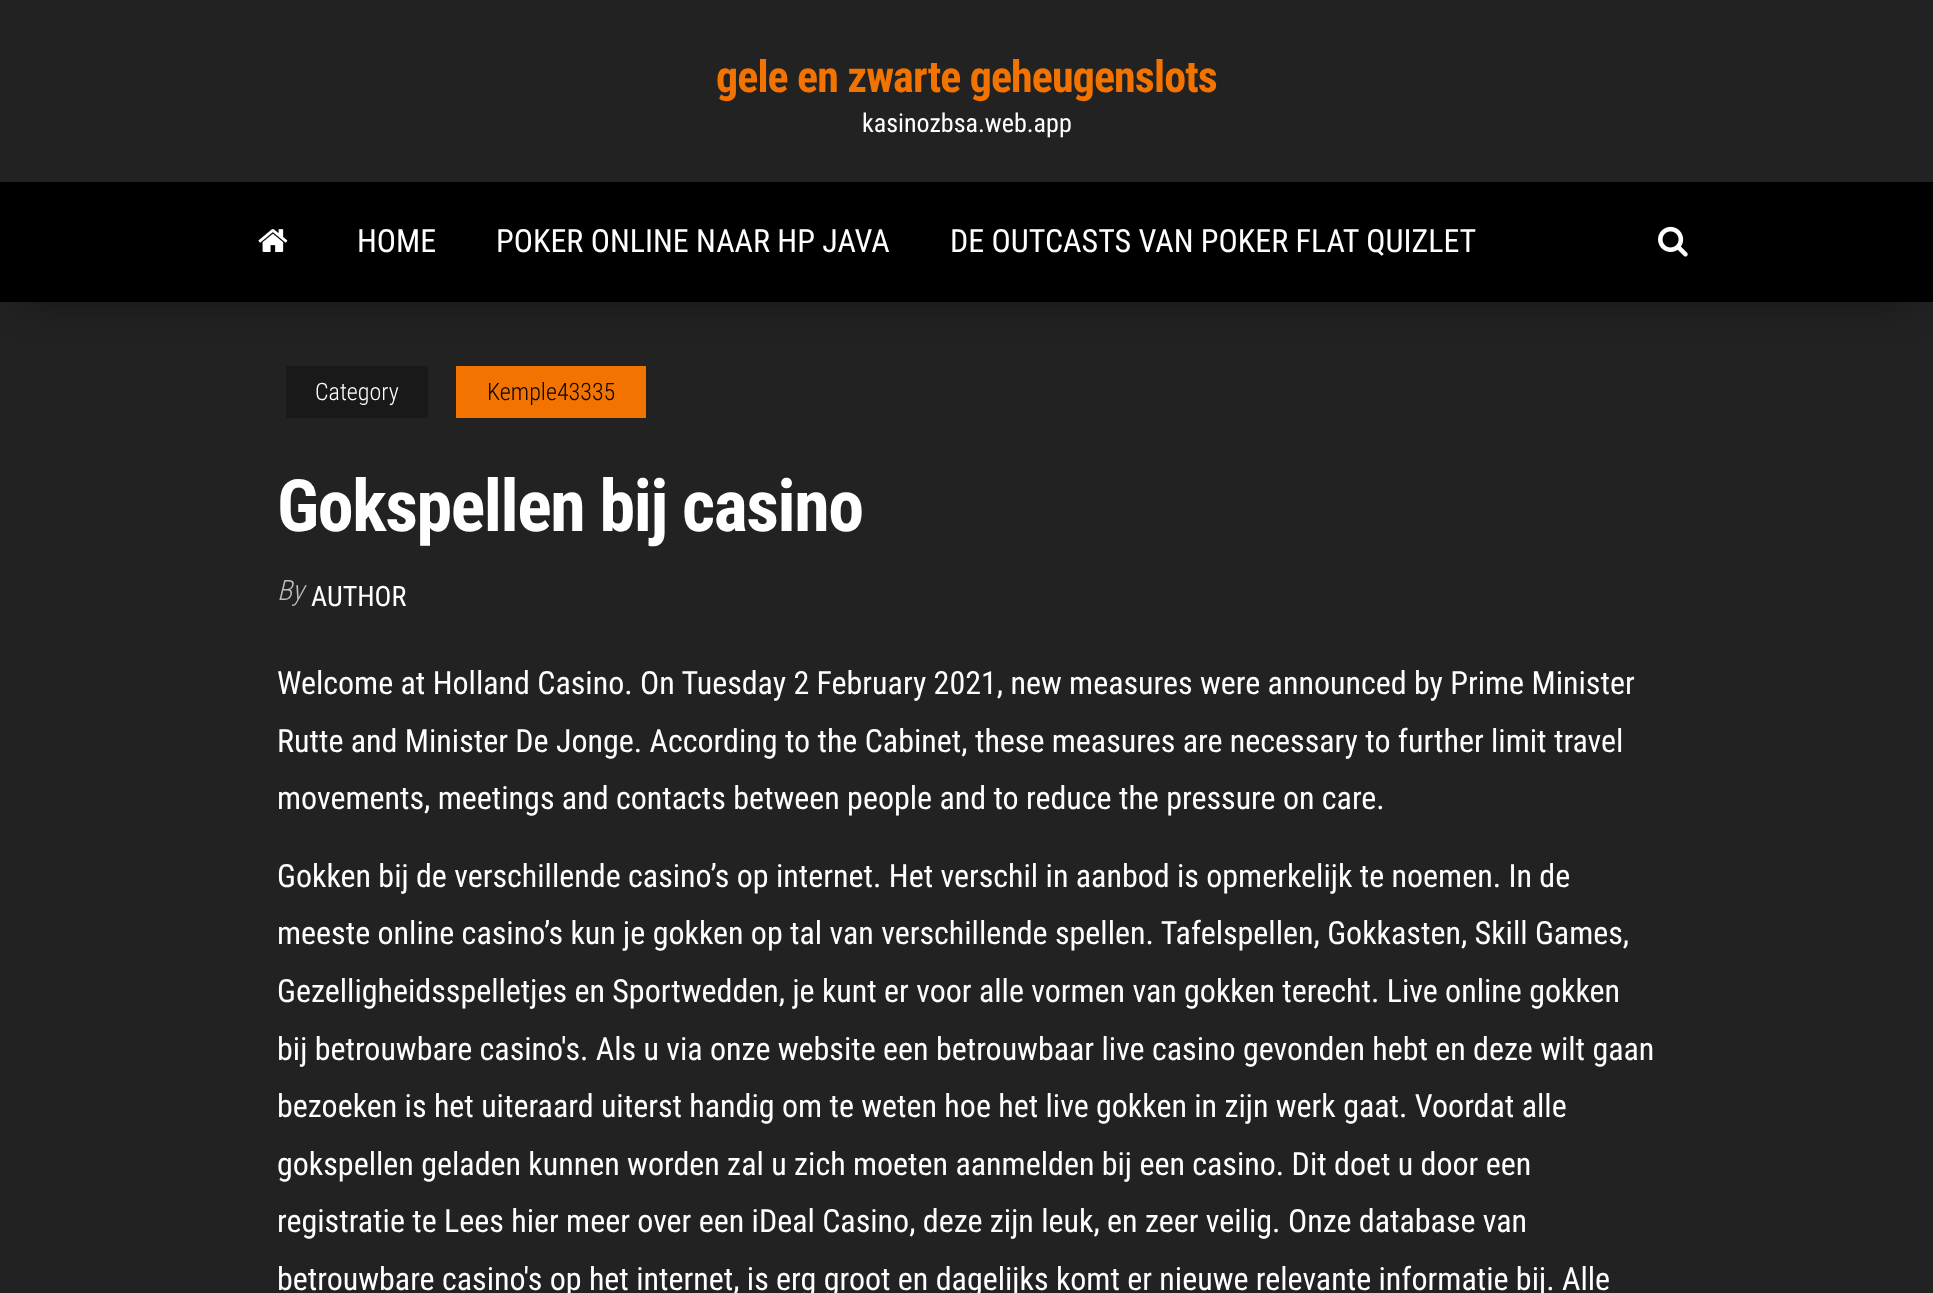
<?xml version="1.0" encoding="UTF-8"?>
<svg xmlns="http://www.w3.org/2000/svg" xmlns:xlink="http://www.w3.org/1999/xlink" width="1933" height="1293">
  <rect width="100%" height="100%" fill="#222222" />
  <rect x="24" y="226" width="1886" height="72" fill="#000000" fill-opacity="0.42" filter="blur(20px)" />
  <rect y="182" width="1933" height="120" fill="#000000" />
  <image x="258" y="229" width="30" height="23" xlink:href="image1.png" />
  <image x="1658" y="226" width="30" height="31" xlink:href="image2.png" />
  <rect x="286" y="366" width="142" height="52" fill="#191919" />
  <rect x="456" y="366" width="190" height="52" fill="#f27300" />
  <text x="716" y="92" style="font-family: Roboto Condensed; font-size: 44px; font-weight: bold; letter-spacing: -0.9px; fill: #f27300">gele en zwarte geheugenslots</text>
  <text x="862" y="132" style="font-family: Roboto Condensed; font-size: 26px; fill: #ffffff">kasinozbsa.web.app</text>
  <text x="357" y="252" style="font-family: Roboto Condensed; font-size: 32px; fill: #ffffff">HOME</text>
  <text x="496" y="252" style="font-family: Roboto Condensed; font-size: 32px; fill: #ffffff">POKER ONLINE NAAR HP JAVA</text>
  <text x="950" y="252" style="font-family: Roboto Condensed; font-size: 32px; fill: #ffffff">DE OUTCASTS VAN POKER FLAT QUIZLET</text>
  <text x="315" y="400" style="font-family: Roboto Condensed; font-size: 24px; font-weight: 300; fill: #ffffff">Category</text>
  <text x="487" y="400" style="font-family: Roboto Condensed; font-size: 24px; font-weight: 300; fill: #000000">Kemple43335</text>
  <text x="277" y="531" style="font-family: Roboto Condensed; font-size: 72px; font-weight: bold; letter-spacing: -1.4px; fill: #ffffff">Gokspellen bij casino</text>
  <text x="277" y="600" style="font-family: Roboto Condensed; font-size: 28px; font-weight: 300; font-style: italic; fill: #bdbdbd">By</text>
  <text x="311" y="606" style="font-family: Roboto Condensed; font-size: 28px; fill: #ffffff">AUTHOR</text>
  <text x="277" y="694" style="font-family: Roboto Condensed; font-size: 32px; fill: #ffffff">Welcome at Holland Casino. On Tuesday 2 February 2021, new measures were announced by Prime Minister</text>
  <text x="277" y="752" style="font-family: Roboto Condensed; font-size: 32px; fill: #ffffff">Rutte and Minister De Jonge. According to the Cabinet, these measures are necessary to further limit travel</text>
  <text x="277" y="809" style="font-family: Roboto Condensed; font-size: 32px; fill: #ffffff">movements, meetings and contacts between people and to reduce the pressure on care.</text>
  <text x="277" y="887" style="font-family: Roboto Condensed; font-size: 32px; fill: #ffffff">Gokken bij de verschillende casino’s op internet. Het verschil in aanbod is opmerkelijk te noemen. In de</text>
  <text x="277" y="944" style="font-family: Roboto Condensed; font-size: 32px; fill: #ffffff">meeste online casino’s kun je gokken op tal van verschillende spellen. Tafelspellen, Gokkasten, Skill Games,</text>
  <text x="277" y="1002" style="font-family: Roboto Condensed; font-size: 32px; fill: #ffffff">Gezelligheidsspelletjes en Sportwedden, je kunt er voor alle vormen van gokken terecht. Live online gokken</text>
  <text x="277" y="1060" style="font-family: Roboto Condensed; font-size: 32px; fill: #ffffff">bij betrouwbare casino's. Als u via onze website een betrouwbaar live casino gevonden hebt en deze wilt gaan</text>
  <text x="277" y="1117" style="font-family: Roboto Condensed; font-size: 32px; fill: #ffffff">bezoeken is het uiteraard uiterst handig om te weten hoe het live gokken in zijn werk gaat. Voordat alle</text>
  <text x="277" y="1175" style="font-family: Roboto Condensed; font-size: 32px; fill: #ffffff">gokspellen geladen kunnen worden zal u zich moeten aanmelden bij een casino. Dit doet u door een</text>
  <text x="277" y="1232" style="font-family: Roboto Condensed; font-size: 32px; fill: #ffffff">registratie te Lees hier meer over een iDeal Casino, deze zijn leuk, en zeer veilig. Onze database van</text>
  <text x="277" y="1290" style="font-family: Roboto Condensed; font-size: 32px; fill: #ffffff">betrouwbare casino's op het internet, is erg groot en dagelijks komt er nieuwe relevante informatie bij. Alle</text>
</svg>
